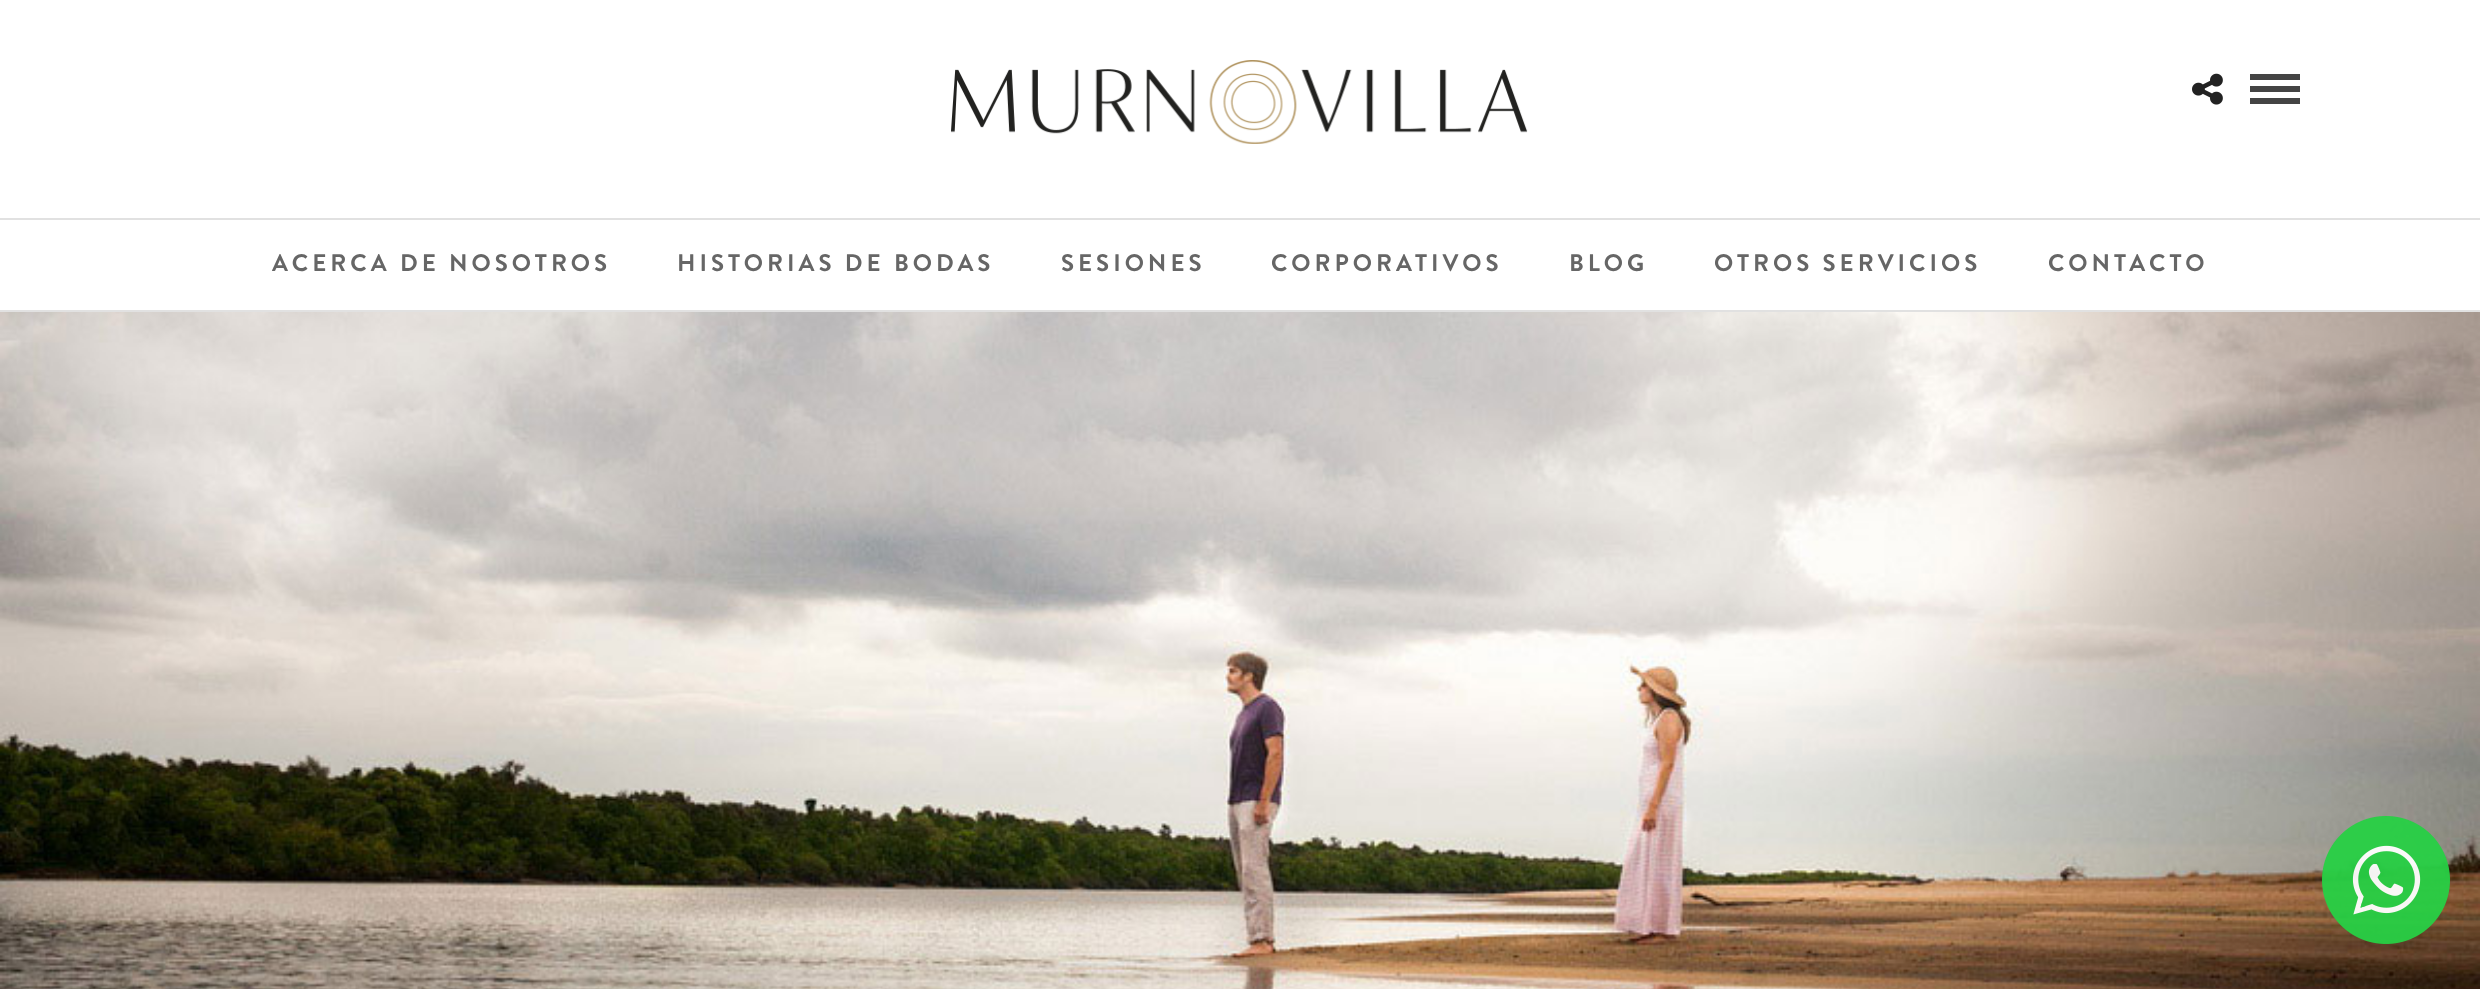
<?xml version="1.0" encoding="UTF-8"?>
<svg xmlns="http://www.w3.org/2000/svg" xmlns:xlink="http://www.w3.org/1999/xlink" width="2480" height="989">
  <rect width="100%" height="100%" fill="#ffffff" />
  <rect y="310" width="2480" height="2" fill="#e1e1e1" />
  <rect y="218" width="2480" height="2" fill="#e1e1e1" />
  <image x="951" y="60" width="577" height="84" xlink:href="image1.png" />
  <image x="2192" y="73" width="31" height="32" xlink:href="image2.png" />
  <rect x="2250" y="74" width="50" height="6" fill="#444444" />
  <rect x="2250" y="86" width="50" height="6" fill="#444444" />
  <rect x="2250" y="98" width="50" height="6" fill="#444444" />
  <image x="0" y="312" width="2480" height="677" xlink:href="image3.png" />
  <image x="2322" y="816" width="128" height="128" xlink:href="image4.png" />
  <text x="272" y="271" style="font-family: Brandon Grotesque; font-size: 24px; font-weight: bold; letter-spacing: 4px; fill: #666666">ACERCA DE NOSOTROS</text>
  <text x="677" y="271" style="font-family: Brandon Grotesque; font-size: 24px; font-weight: bold; letter-spacing: 4px; fill: #666666">HISTORIAS DE BODAS</text>
  <text x="1061" y="271" style="font-family: Brandon Grotesque; font-size: 24px; font-weight: bold; letter-spacing: 4px; fill: #666666">SESIONES</text>
  <text x="1271" y="271" style="font-family: Brandon Grotesque; font-size: 24px; font-weight: bold; letter-spacing: 4px; fill: #666666">CORPORATIVOS</text>
  <text x="1569" y="271" style="font-family: Brandon Grotesque; font-size: 24px; font-weight: bold; letter-spacing: 4px; fill: #666666">BLOG</text>
  <text x="1714" y="271" style="font-family: Brandon Grotesque; font-size: 24px; font-weight: bold; letter-spacing: 4px; fill: #666666">OTROS SERVICIOS</text>
  <text x="2048" y="271" style="font-family: Brandon Grotesque; font-size: 24px; font-weight: bold; letter-spacing: 4px; fill: #666666">CONTACTO</text>
</svg>
